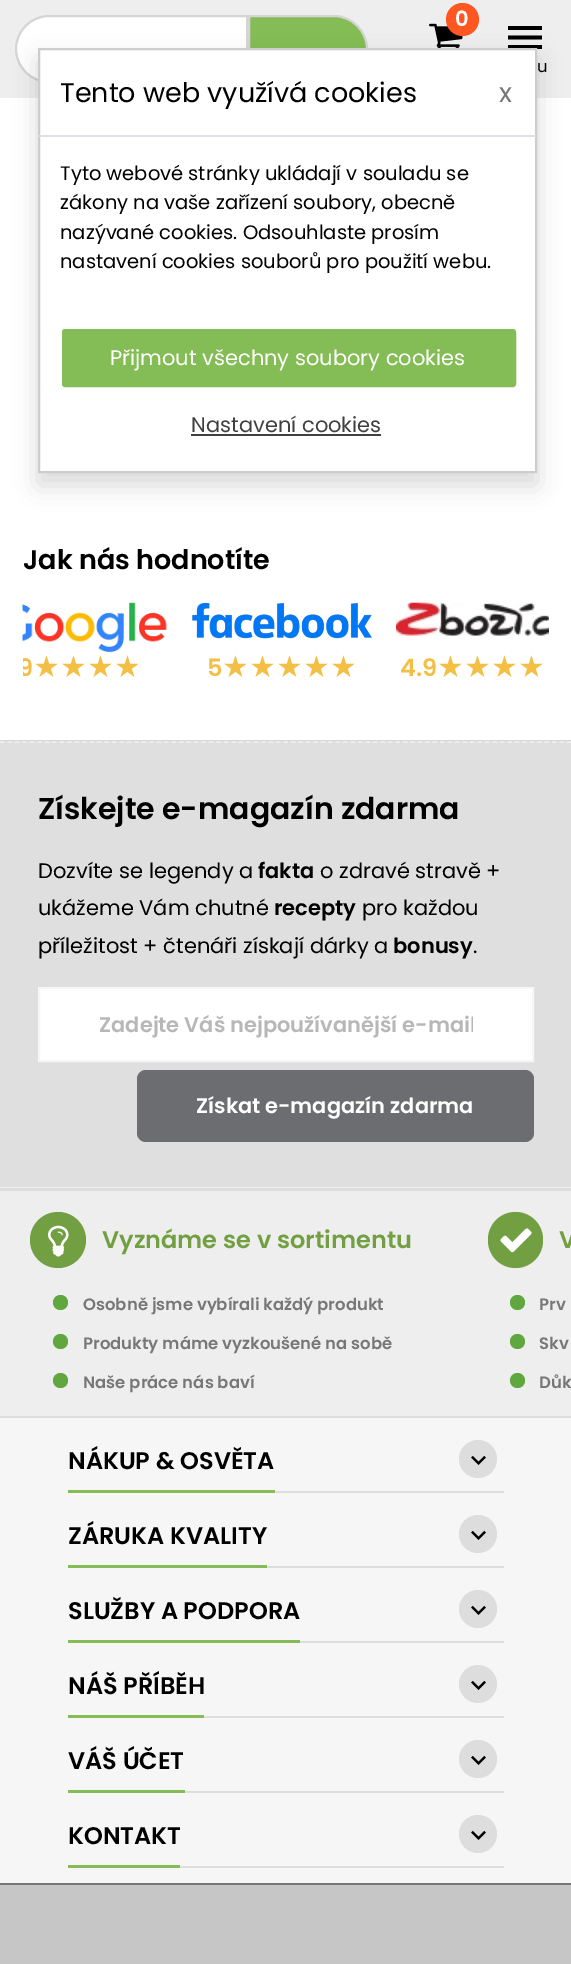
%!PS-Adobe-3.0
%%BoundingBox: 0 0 571 1964
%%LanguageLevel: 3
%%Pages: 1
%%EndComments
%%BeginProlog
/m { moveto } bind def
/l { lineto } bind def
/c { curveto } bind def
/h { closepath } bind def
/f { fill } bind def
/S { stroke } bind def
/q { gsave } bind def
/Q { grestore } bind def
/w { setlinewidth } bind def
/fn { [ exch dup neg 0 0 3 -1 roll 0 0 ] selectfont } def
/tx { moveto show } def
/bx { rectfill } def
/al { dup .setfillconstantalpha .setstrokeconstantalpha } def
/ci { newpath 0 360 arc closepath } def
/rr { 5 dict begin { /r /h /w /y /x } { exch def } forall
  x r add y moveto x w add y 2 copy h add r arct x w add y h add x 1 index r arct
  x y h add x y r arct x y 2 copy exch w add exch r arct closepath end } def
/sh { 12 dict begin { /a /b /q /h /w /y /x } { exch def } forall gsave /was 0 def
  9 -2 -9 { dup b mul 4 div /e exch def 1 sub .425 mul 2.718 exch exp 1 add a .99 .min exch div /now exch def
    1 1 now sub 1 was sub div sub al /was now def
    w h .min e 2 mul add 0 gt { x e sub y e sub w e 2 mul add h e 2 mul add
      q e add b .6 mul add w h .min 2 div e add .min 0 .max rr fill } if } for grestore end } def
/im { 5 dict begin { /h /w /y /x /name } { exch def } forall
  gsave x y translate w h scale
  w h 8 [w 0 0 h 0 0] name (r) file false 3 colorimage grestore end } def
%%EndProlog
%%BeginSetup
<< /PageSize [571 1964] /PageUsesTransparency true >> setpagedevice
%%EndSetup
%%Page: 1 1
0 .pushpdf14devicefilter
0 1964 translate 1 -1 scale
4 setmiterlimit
1 setgray
0 0 571 1964 bx
0.933 setgray
0 0 571 98 bx
1 setgray
49 16 m 247 16 l 247 82 l 49 82 l 31 82 16 67 16 49 c 16 31 31 16 49 16 c h q f Q
0.839 0.831 0.831 setrgbcolor
2 w
S
0.518 0.741 0.333 setrgbcolor
249 16 m 334 16 l 352 16 367 31 367 49 c 367 67 352 82 334 82 c 249 82 l h q f Q
0.839 0.831 0.831 setrgbcolor
S
(image0.raw) 429 23 34 25 im
1 0.341 0.133 setrgbcolor
462.5 19.5 16.5 ci f
/Poppins-SemiBold 21 fn
1 setgray
(0) 455 26 tx
0 setgray
508 26 m 542 26 l 542 30 l 508 30 l h 508 39.5 m 508 35.5 l 542 35.5 l 542 39.5 l h 508 49 m 508 45 l 542 45 l 542 49 l h f
/Poppins-Regular 16.5 fn
(u) 537 72 tx
/Poppins-SemiBold 27 fn
(Jak nás hodnotíte) 23 569 tx
(image1.raw) 22 602 145 50 im
q
23 603 526 92 rectclip
/Poppins-SemiBold 24 fn
0.953 0.749 0.271 setrgbcolor
(9) 18 676 tx
Q
/DejaVuSans-Regular 30 fn
0.953 0.749 0.271 setrgbcolor
(★★★★) 33 677 tx
(image2.raw) 192 602 180 37 im
/Poppins-SemiBold 24 fn
(5) 207 676 tx
/DejaVuSans-Regular 30 fn
(★★★★★) 222 677 tx
(image3.raw) 396 602 153 34 im
/Poppins-SemiBold 24 fn
(4.9) 400 676 tx
/DejaVuSans-Regular 30 fn
(★★★★) 437 677 tx
0.965 setgray
0 1418 571 465 bx
0.839 0.831 0.831 setrgbcolor
0 740 571 1 bx
0.875 setgray
0 741 571 446 bx
0.933 setgray
1.5 w
[4.5 2.96] 0 setdash
0 742 m 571.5 742 l S
0 1187 571 1 bx
/Poppins-SemiBold 30 fn
0 setgray
(Získejte e-magazín zdarma) 38 819 tx
/Poppins-Regular 21 fn
(Dozvíte se legendy a) 38 878 tx
/Poppins-SemiBold 21 fn
(fakta) 258 878 tx
/Poppins-Regular 21 fn
(o zdravé stravě +) 320 878 tx
(ukážeme Vám chutné) 38 915 tx
/Poppins-SemiBold 21 fn
(recepty) 274 915 tx
/Poppins-Regular 21 fn
(pro každou) 362 915 tx
(příležitost + čtenáři získají dárky a) 38 953 tx
/Poppins-SemiBold 21 fn
(bonusy) 393 953 tx
/Poppins-Regular 21 fn
(.) 473 953 tx
1 setgray
39 988 m 533 988 l 533 1061 l 39 1061 l h q f Q
0.965 setgray
2 w
[] 0 setdash
S
q
99 1010 374 31 rectclip
/Poppins-SemiBold 21 fn
0.718 setgray
(Zadejte Váš nejpoužívanější e-mail) 99 1032 tx
Q
0.424 0.427 0.439 setrgbcolor
137 1070 397 72 9 rr f
/Poppins-SemiBold 21 fn
1 setgray
(Získat e-magazín zdarma) 196 1113 tx
0.933 setgray
0 1191 571 225 bx
0.867 setgray
0 1188 571 3 bx
0.443 0.624 0.255 setrgbcolor
58 1240 28 ci f
(image4.raw) 48 1225 21 32 im
/Poppins-SemiBold 24 fn
(Vyznáme se v sortimentu) 102 1248 tx
0.373 0.655 0.243 setrgbcolor
60.5 1302.5 7.5 ci f
/Poppins-SemiBold 16.5 fn
0.467 setgray
(Osobně jsme vybírali každý produkt) 83 1310 tx
0.373 0.655 0.243 setrgbcolor
60.5 1341.5 7.5 ci f
0.467 setgray
(Produkty máme vyzkoušené na sobě) 83 1349 tx
0.373 0.655 0.243 setrgbcolor
60.5 1380.5 7.5 ci f
0.467 setgray
(Naše práce nás baví) 83 1388 tx
0.443 0.624 0.255 setrgbcolor
488 1212 55 56 27.5 rr f
(image5.raw) 500 1228 32 25 im
/Poppins-SemiBold 24 fn
(V) 559 1248 tx
0.373 0.655 0.243 setrgbcolor
517.5 1302.5 7.5 ci f
/Poppins-SemiBold 16.5 fn
0.467 setgray
(Prv) 539 1310 tx
0.373 0.655 0.243 setrgbcolor
517.5 1341.5 7.5 ci f
0.467 setgray
(Skv) 539 1349 tx
0.373 0.655 0.243 setrgbcolor
517.5 1380.5 7.5 ci f
0.467 setgray
(Důk) 539 1388 tx
0.867 setgray
0 1416 571 2 bx
275 1491 229 2 bx
0.518 0.741 0.333 setrgbcolor
68 1490 207 3 bx
/Poppins-SemiBold 24 fn
0 setgray
(NÁKUP & OSVĚTA) 68 1469 tx
0.867 setgray
478 1459 19 ci f
(image6.raw) 471 1455 15 10 im
267 1566 237 2 bx
0.518 0.741 0.333 setrgbcolor
68 1565 199 3 bx
0 setgray
(ZÁRUKA KVALITY) 68 1544 tx
0.867 setgray
478 1534 19 ci f
(image6.raw) 471 1530 15 10 im
300 1641 204 2 bx
0.518 0.741 0.333 setrgbcolor
68 1640 232 3 bx
0 setgray
(SLUŽBY A PODPORA) 68 1619 tx
0.867 setgray
478 1609 19 ci f
(image6.raw) 471 1605 15 10 im
204 1716 300 2 bx
0.518 0.741 0.333 setrgbcolor
68 1715 136 3 bx
0 setgray
(NÁŠ PŘÍBĚH) 68 1694 tx
0.867 setgray
478 1684 19 ci f
(image6.raw) 471 1680 15 10 im
185 1791 319 2 bx
0.518 0.741 0.333 setrgbcolor
68 1790 117 3 bx
0 setgray
(VÁŠ ÚČET) 68 1769 tx
0.867 setgray
478 1759 19 ci f
(image6.raw) 471 1755 15 10 im
180 1866 324 2 bx
0.518 0.741 0.333 setrgbcolor
68 1865 112 3 bx
0 setgray
(KONTAKT) 68 1844 tx
0.867 setgray
478 1834 19 ci f
(image6.raw) 471 1830 15 10 im
0.776 setgray
0 1885 571 79 bx
0.467 setgray
0 1883 571 2 bx
0 setgray
38 60 499 425 0 12 0.15 sh
1 setgray
39 49 m 536 49 l 536 472 l 39 472 l h q f Q
0.8 setgray
S
0.871 0.886 0.902 setrgbcolor
39 135 497 2 bx
/Poppins-Regular 27 fn
0 setgray
(Tento web využívá cookies) 60 102 tx
0.467 setgray
(x) 499 102 tx
/Poppins-Regular 19.5 fn
0 setgray
(Tyto webové stránky ukládají v souladu se) 60 180 tx
(zákony na vaše zařízení soubory, obecně) 60 209 tx
(nazývané cookies. Odsouhlaste prosím) 60 239 tx
(nastavení cookies souborů pro použití webu.) 60 268 tx
0.518 0.741 0.333 setrgbcolor
63 330 452 56 2 rr q f Q
S
/Poppins-Regular 21 fn
1 setgray
(Přijmout všechny soubory cookies) 110 365 tx
0.251 setgray
(Nastavení cookies) 191 432 tx
191 434 190 2 bx
.poppdf14devicefilter showpage
%%EOF
